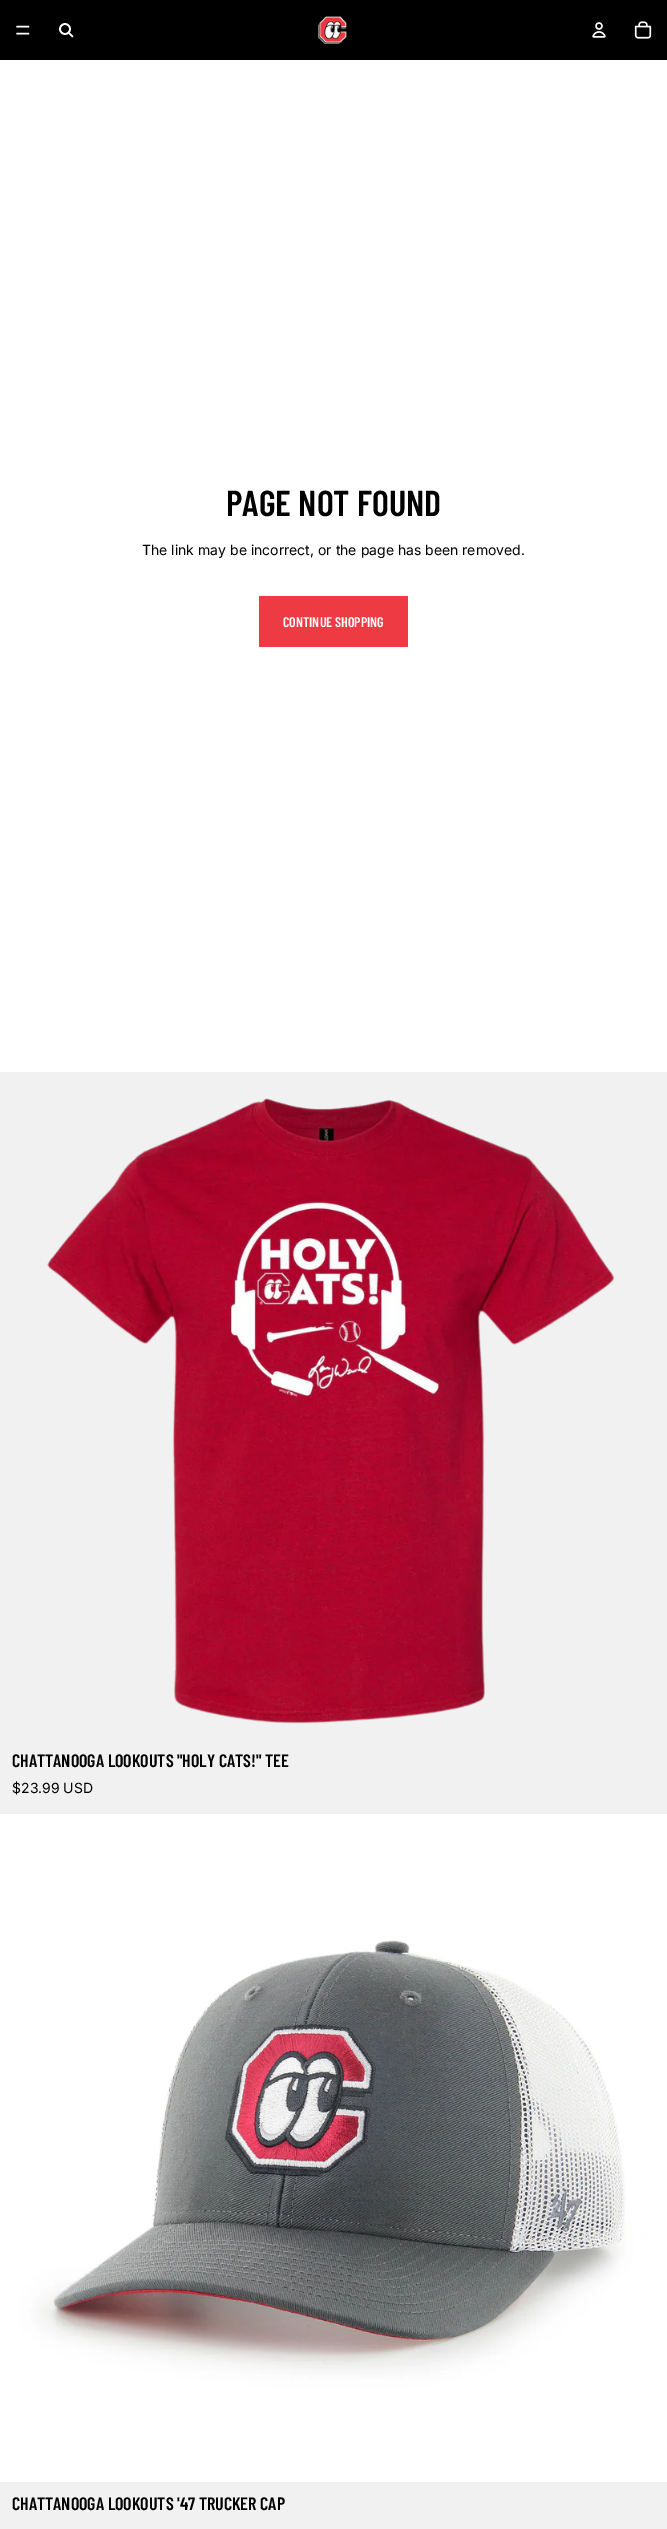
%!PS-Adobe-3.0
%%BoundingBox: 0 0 667 2529
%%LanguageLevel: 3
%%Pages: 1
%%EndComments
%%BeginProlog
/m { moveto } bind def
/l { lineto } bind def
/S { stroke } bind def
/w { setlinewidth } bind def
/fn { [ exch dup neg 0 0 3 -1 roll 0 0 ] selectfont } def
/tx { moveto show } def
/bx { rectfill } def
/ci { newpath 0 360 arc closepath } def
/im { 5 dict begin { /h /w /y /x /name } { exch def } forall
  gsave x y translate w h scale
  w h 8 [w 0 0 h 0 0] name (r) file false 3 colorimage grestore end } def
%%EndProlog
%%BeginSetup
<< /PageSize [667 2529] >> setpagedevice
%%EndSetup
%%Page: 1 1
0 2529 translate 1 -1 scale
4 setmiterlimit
1 setgray
0 0 667 2529 bx
0 setgray
0 0 667 60 bx
1 setgray
1.5 w
1 setlinecap
17 26.5 m 28.5 26.5 l 17 33.5 m 28.5 33.5 l S
1.7 w
0 setlinecap
65 29 5 ci S
1 setlinecap
1 setlinejoin
69 33 m 72.5 36.5 l S
(image0.raw) 318 16 29 28 im
(image1.raw) 592 22 14 16 im
(image2.raw) 634 21 18 18 im
/BarlowCondensed-SemiBold 36 fn
0 setgray
(PAGE NOT FOUND) 226 516 tx
/Inter-Regular 14 fn
(The link may be incorrect, or the page has been removed.) 142 555 tx
0.933 0.227 0.263 setrgbcolor
259 596 149 51 bx
/BarlowCondensed-SemiBold 14 fn
1 setgray
(CONTINUE SHOPPING) 283 627 tx
0.945 setgray
0 1072 667 742 bx
(image3.raw) 47 1098 568 626 im
/BarlowCondensed-SemiBold 18 fn
0 setgray
(CHATTANOOGA LOOKOUTS "HOLY CATS!" TEE) 12 1767 tx
/Inter-Regular 14 fn
($23.99 USD) 12 1793 tx
0.945 setgray
0 2482 667 47 bx
(image4.raw) 0 1815 667 667 im
/BarlowCondensed-SemiBold 18 fn
0 setgray
(CHATTANOOGA LOOKOUTS '47 TRUCKER CAP) 12 2510 tx
showpage
%%EOF
